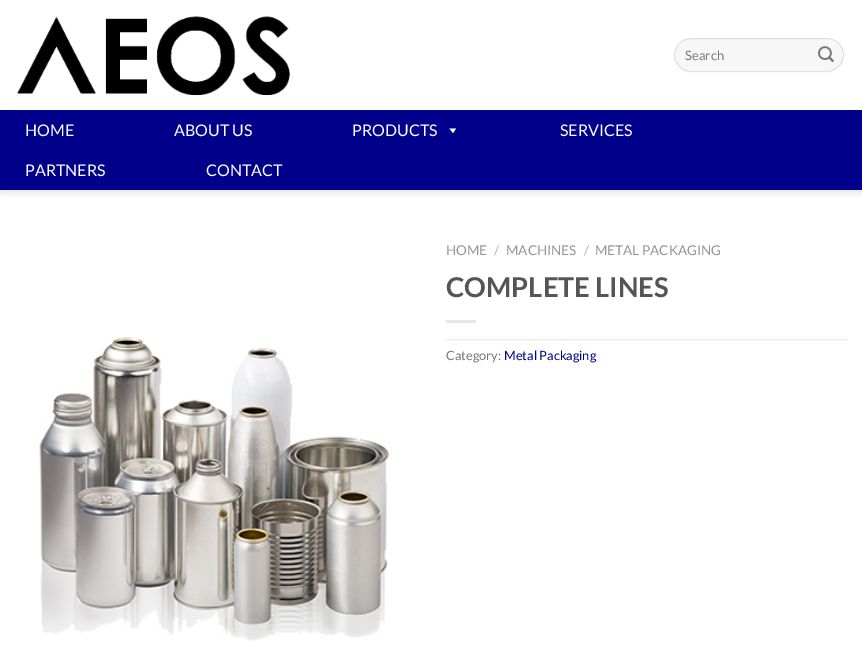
%!PS-Adobe-3.0
%%BoundingBox: 0 0 862 659
%%LanguageLevel: 3
%%Pages: 1
%%EndComments
%%BeginProlog
/m { moveto } bind def
/l { lineto } bind def
/h { closepath } bind def
/f { fill } bind def
/S { stroke } bind def
/q { gsave } bind def
/Q { grestore } bind def
/fn { [ exch dup neg 0 0 3 -1 roll 0 0 ] selectfont } def
/tx { moveto show } def
/bx { rectfill } def
/al { dup .setfillconstantalpha .setstrokeconstantalpha } def
/rr { 5 dict begin { /r /h /w /y /x } { exch def } forall
  x r add y moveto x w add y 2 copy h add r arct x w add y h add x 1 index r arct
  x y h add x y r arct x y 2 copy exch w add exch r arct closepath end } def
/sh { 12 dict begin { /a /b /q /h /w /y /x } { exch def } forall gsave /was 0 def
  9 -2 -9 { dup b mul 4 div /e exch def 1 sub .425 mul 2.718 exch exp 1 add a .99 .min exch div /now exch def
    1 1 now sub 1 was sub div sub al /was now def
    w h .min e 2 mul add 0 gt { x e sub y e sub w e 2 mul add h e 2 mul add
      q e add b .6 mul add w h .min 2 div e add .min 0 .max rr fill } if } for grestore end } def
/im { 5 dict begin { /h /w /y /x /name } { exch def } forall
  gsave x y translate w h scale
  w h 8 [w 0 0 h 0 0] name (r) file false 3 colorimage grestore end } def
%%EndProlog
%%BeginSetup
<< /PageSize [862 659] /PageUsesTransparency true >> setpagedevice
%%EndSetup
%%Page: 1 1
0 .pushpdf14devicefilter
0 659 translate 1 -1 scale
4 setmiterlimit
1 setgray
0 0 862 659 bx
q
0 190 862 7 rectclip
0 setgray
1 1 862 190 0 5 0.15 sh
Q
(image0.raw) 17 16 273 80 im
0.969 setgray
674 38 170 34 17 rr f
0.09 al
0 setgray
674.5 38.5 169 33 16.5 rr S
/Lato-Regular 13 fn
1 al
0.467 setgray
(Search) 685 60 tx
(image1.raw) 818 46 16 16 im
0 0 0.545 setrgbcolor
0 110 862 80 bx
0.047 0.047 0.537 setrgbcolor
15 110 832 1 bx
/Lato-Regular 16 fn
1 setgray
(HOME) 25 136 tx
(ABOUT US) 174 136 tx
(PRODUCTS) 352 136 tx
456 128.5 m 453 133 l 449.5 128.5 l h f
(SERVICES) 560 136 tx
(PARTNERS) 25 176 tx
(CONTACT) 206 176 tx
/Lato-Regular 13.5 fn
0.58 setgray
(HOME) 446 255 tx
0.698 setgray
(/) 494 255 tx
0.58 setgray
(MACHINES) 506 255 tx
0.698 setgray
(/) 584 255 tx
0.58 setgray
(METAL PACKAGING) 595 255 tx
/Lato-Bold 27.25 fn
0.333 setgray
(COMPLETE LINES) 446 297 tx
0.902 setgray
446 320 30 3 bx
0.867 setgray
[1 1] 0 setdash
446 339.5 m 847 339.5 l S
/Lato-Regular 12.75 fn
0.467 setgray
(Category:) 446 360 tx
0 0 0.545 setrgbcolor
(Metal Packaging) 504 360 tx
(image2.raw) 39 337 351 304 im
.poppdf14devicefilter showpage
%%EOF
